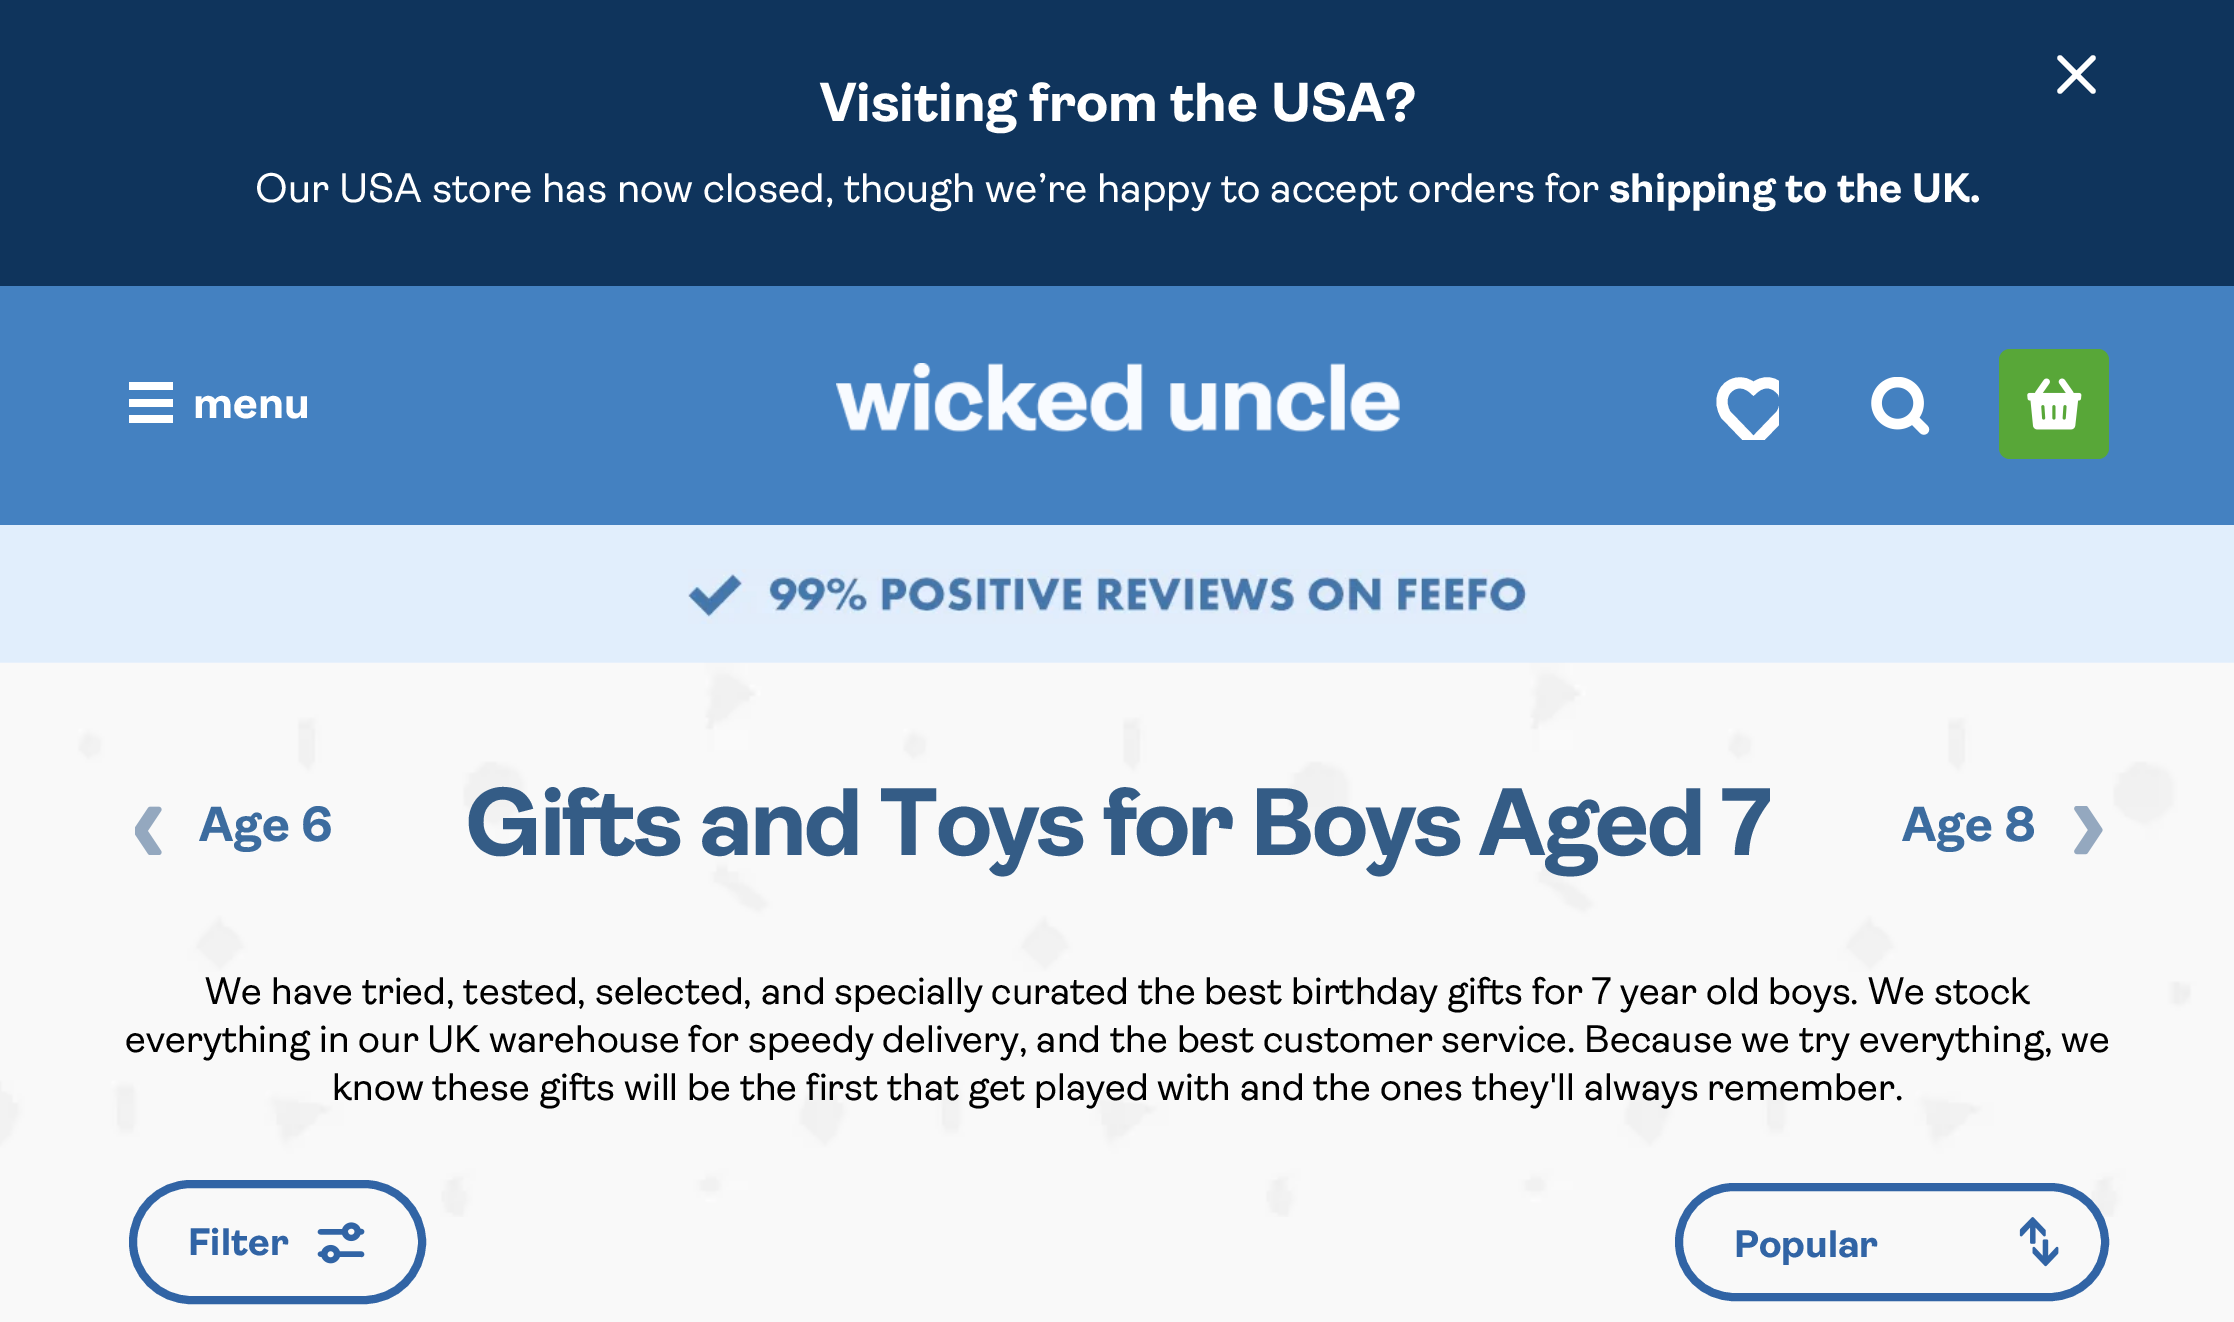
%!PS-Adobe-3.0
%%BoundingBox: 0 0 2234 1322
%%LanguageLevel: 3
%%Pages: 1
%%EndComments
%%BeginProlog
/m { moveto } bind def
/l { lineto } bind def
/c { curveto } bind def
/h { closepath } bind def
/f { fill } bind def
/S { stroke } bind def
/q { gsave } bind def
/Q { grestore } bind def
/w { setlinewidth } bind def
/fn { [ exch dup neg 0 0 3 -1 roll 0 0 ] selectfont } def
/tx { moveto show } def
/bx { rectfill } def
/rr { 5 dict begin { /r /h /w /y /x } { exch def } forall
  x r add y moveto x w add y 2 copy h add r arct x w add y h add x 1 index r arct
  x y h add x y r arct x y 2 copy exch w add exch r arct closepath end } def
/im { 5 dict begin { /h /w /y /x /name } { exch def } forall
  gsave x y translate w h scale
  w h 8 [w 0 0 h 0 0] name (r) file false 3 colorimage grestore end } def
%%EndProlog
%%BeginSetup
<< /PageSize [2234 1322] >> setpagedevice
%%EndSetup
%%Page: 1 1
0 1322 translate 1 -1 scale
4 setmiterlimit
0.882 0.933 0.988 setrgbcolor
0 0 2234 1322 bx
0.059 0.204 0.361 setrgbcolor
0 0 2234 286 bx
1 setgray
5.5 w
1 setlinecap
1 setlinejoin
2093 58 m 2060 91 l 2060 58 m 2093 91 l S
/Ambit-Bold 55 fn
(Visiting from the USA?) 820 121 tx
/Ambit-Regular 41.25 fn
255 202 m 0.4 0 32 (Our USA store has now closed, though we’re happy to accept orders for) widthshow
/Ambit-Bold 41.25 fn
(shipping to the UK.) 1609 202 tx
0.267 0.506 0.757 setrgbcolor
0 286 2234 239 bx
1 setgray
129 382 44 8 bx
129 399 44 8 bx
129 415 44 8 bx
/Ambit-Bold 44 fn
(menu) 193 418 tx
(image0.raw) 836 363 564 69 im
q
1713 374 66 66 rectclip
11 w
0 setlinecap
0 setlinejoin
1783 392 m 1775.5 381.5 1763.5 379.5 1753.5 388.5 c 1748.5 384 1742 381.5 1735.5 383.5 c 1730.5 384.5 1725.5 388.5 1723.5 394 c 1720.5 400.5 1722 409 1726 415 c 1753.5 443.5 l 1781 415 l 1785.5 408.5 1786.5 399 1783 392 c h S
Q
(image1.raw) 1871 377 59 58 im
0.345 0.655 0.22 setrgbcolor
1999 349 110 110 11 rr f
(image2.raw) 2027 378 55 52 im
(image3.raw) 688 569 839 55 im
0.976 setgray
0 1217 2234 105 bx
(image4.raw) 0 662 2234 555 im
(image5.raw) 135 806 27 49 im
/Ambit-Bold 49.5 fn
0.235 0.424 0.624 setrgbcolor
(Age 6) 199 841 tx
/Ambit-Bold 96.25 fn
0.204 0.361 0.525 setrgbcolor
465 855 m -2.9 0 (Gifts and Toys for Boys Aged 7) ashow
/Ambit-Bold 49.5 fn
0.235 0.424 0.624 setrgbcolor
(Age 8) 1902 841 tx
(image6.raw) 2074 806 29 49 im
/Ambit-Regular 38.5 fn
0 setgray
(We have tried, tested, selected, and specially curated the best birthday gifts for 7 year old boys. We stock) 205 1004 tx
(everything in our UK warehouse for speedy delivery, and the best customer service. Because we try everything, we) 125 1052 tx
(know these gifts will be the first that get played with and the ones they'll always remember.) 332 1100 tx
0.192 0.392 0.647 setrgbcolor
8 w
0 setlinecap
0 setlinejoin
133 1184 289 116 58 rr S
/Ambit-Bold 38.5 fn
(Filter) 188 1255 tx
(image7.raw) 317 1222 48 42 im
(image8.raw) 2019 1217 40 50 im
1679 1187 426 110 55 rr S
(Popular) 1734 1257 tx
showpage
%%EOF
